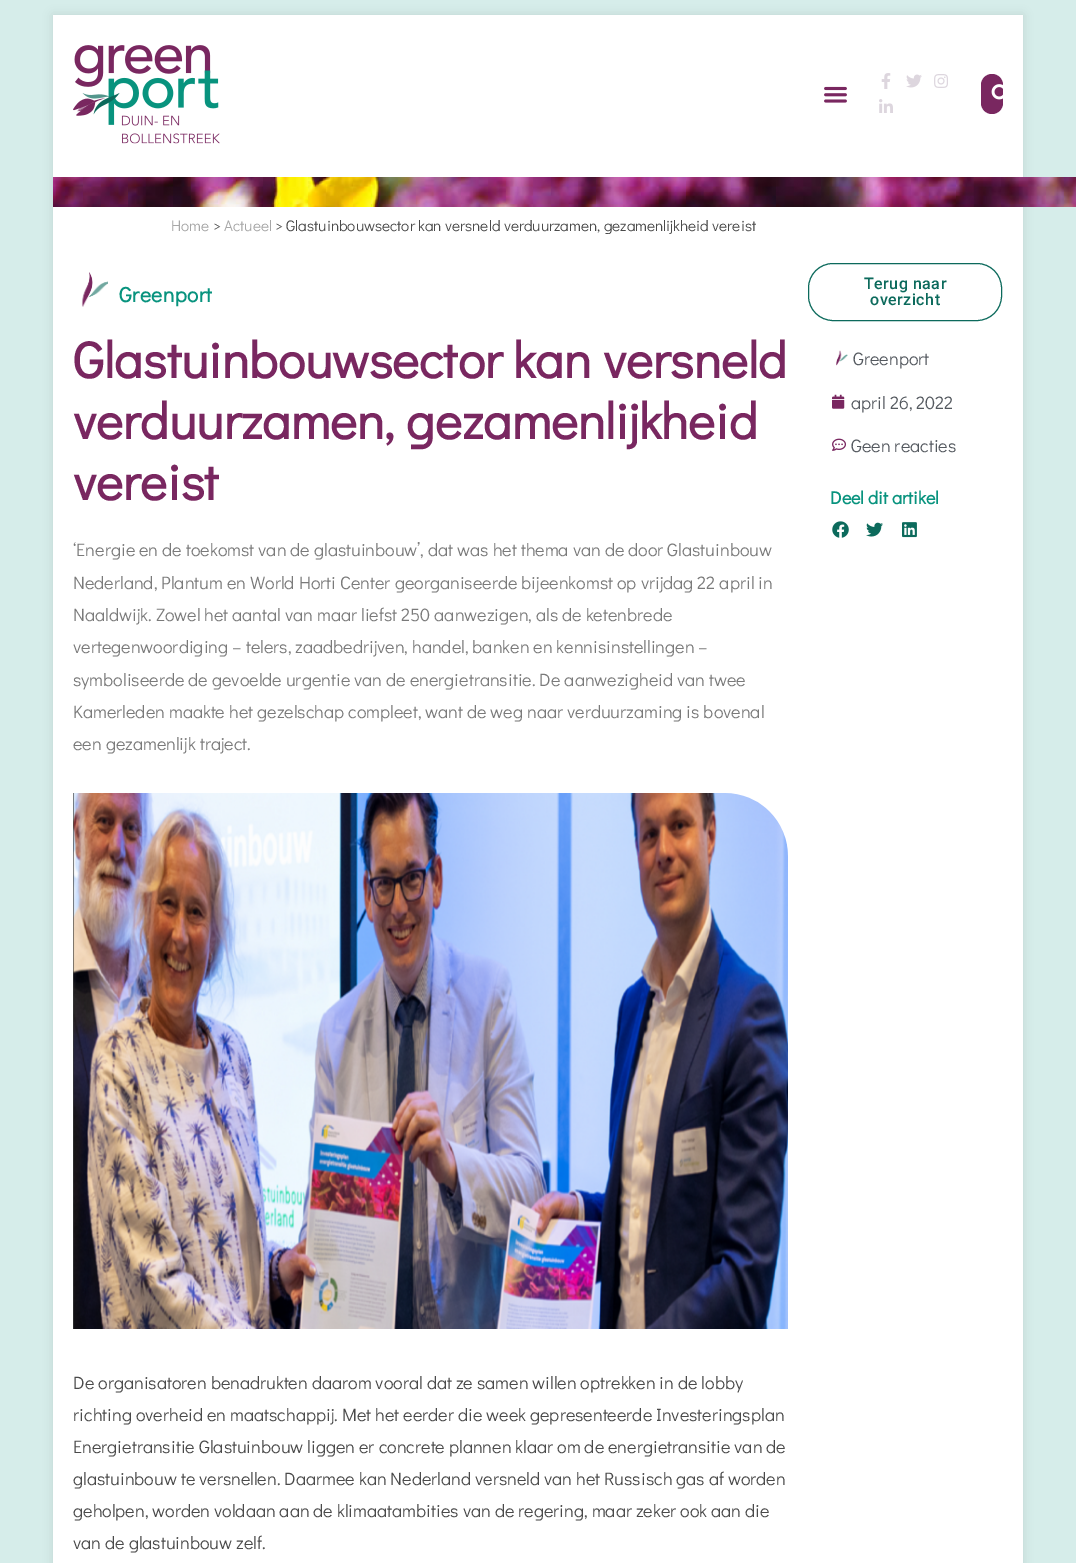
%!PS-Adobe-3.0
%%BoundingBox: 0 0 1076 1563
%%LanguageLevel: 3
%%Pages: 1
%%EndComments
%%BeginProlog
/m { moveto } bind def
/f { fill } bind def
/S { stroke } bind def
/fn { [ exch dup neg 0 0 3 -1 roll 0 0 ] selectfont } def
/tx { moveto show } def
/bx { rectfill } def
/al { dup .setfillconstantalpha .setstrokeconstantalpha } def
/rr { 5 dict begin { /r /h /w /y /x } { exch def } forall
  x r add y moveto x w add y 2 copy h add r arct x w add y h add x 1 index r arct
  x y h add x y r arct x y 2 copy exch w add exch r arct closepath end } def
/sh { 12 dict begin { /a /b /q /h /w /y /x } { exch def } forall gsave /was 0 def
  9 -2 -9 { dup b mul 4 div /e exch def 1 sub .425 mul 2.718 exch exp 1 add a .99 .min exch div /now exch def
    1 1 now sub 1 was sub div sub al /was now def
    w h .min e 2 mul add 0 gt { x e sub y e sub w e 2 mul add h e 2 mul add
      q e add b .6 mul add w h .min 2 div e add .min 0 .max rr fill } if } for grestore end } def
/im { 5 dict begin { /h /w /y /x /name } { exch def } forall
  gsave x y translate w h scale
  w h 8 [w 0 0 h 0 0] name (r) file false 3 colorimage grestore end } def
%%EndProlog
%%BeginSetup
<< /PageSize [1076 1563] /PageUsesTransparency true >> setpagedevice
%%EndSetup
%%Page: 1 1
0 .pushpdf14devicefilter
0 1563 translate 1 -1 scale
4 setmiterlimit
0.839 0.929 0.918 setrgbcolor
0 0 1076 1563 bx
0 setgray
53 15 970 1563 0 5 0.1 sh
1 setgray
53 15 970 1548 bx
(image0.raw) 73 45 147 99 im
(image1.raw) 824 86 23 17 im
(image2.raw) 881 73 10 16 im
(image3.raw) 906 74 16 14 im
(image4.raw) 934 74 14 14 im
(image5.raw) 879 99 14 14 im
0.475 0.153 0.376 setrgbcolor
981 74 22 40 11 rr f
(image6.raw) 991 84 12 16 im
(image7.raw) 53 177 1023 30 im
/DidactGothic-Regular 15.3 fn
0.655 setgray
(Home) 171 231 tx
0.29 setgray
(>) 213 231 tx
0.655 setgray
(Actueel) 224 231 tx
0.29 setgray
(> Glastuinbouwsector kan versneld verduurzamen, gezamenlijkheid vereist) 275 231 tx
(image8.raw) 81 272 27 35 im
/DidactGothic-Bold 21 fn
0.031 0.576 0.494 setrgbcolor
119 302 m 0.5 0 (Greenport) ashow
/DidactGothic-Bold 51 fn
0.475 0.153 0.376 setrgbcolor
(Glastuinbouwsector kan versneld) 73 378 tx
(verduurzamen, gezamenlijkheid) 73 439 tx
(vereist) 73 500 tx
/DidactGothic-Regular 18 fn
0.478 setgray
(‘Energie en de toekomst van de glastuinbouw’, dat was het thema van de door Glastuinbouw) 73 556 tx
(Nederland, Plantum en World Horti Center georganiseerde bijeenkomst op vrijdag 22 april in) 73 589 tx
(Naaldwijk. Zowel het aantal van maar liefst 250 aanwezigen, als de ketenbrede) 73 621 tx
(vertegenwoordiging – telers, zaadbedrijven, handel, banken en kennisinstellingen –) 73 653 tx
(symboliseerde de gevoelde urgentie van de energietransitie. De aanwezigheid van twee) 73 686 tx
(Kamerleden maakte het gezelschap compleet, want de weg naar verduurzaming is bovenal) 73 718 tx
(een gezamenlijk traject.) 73 750 tx
(image9.raw) 73 793 715 536 im
0.29 setgray
(De organisatoren benadrukten daarom vooral dat ze samen willen optrekken in de lobby) 73 1389 tx
(richting overheid en maatschappij. Met het eerder die week gepresenteerde Investeringsplan) 73 1421 tx
(Energietransitie Glastuinbouw liggen er concrete plannen klaar om de energietransitie van de) 73 1453 tx
(glastuinbouw te versnellen. Daarmee kan Nederland versneld van het Russisch gas af worden) 73 1485 tx
(geholpen, worden voldaan aan de klimaatambities van de regering, maar zeker ook aan die) 73 1517 tx
(van de glastuinbouw zelf.) 73 1549 tx
0.047 0.416 0.361 setrgbcolor
808.5 263.5 193 57 24.5 rr S
/Roboto-Medium 16 fn
864 289 m 0.5 0 (Terug naar) ashow
870 305 m 0.5 0 (overzicht) ashow
(image10.raw) 836 350 12 16 im
/DidactGothic-Regular 18 fn
0.329 0.349 0.373 setrgbcolor
(Greenport) 853 365 tx
(image11.raw) 832 394 13 15 im
(april 26, 2022) 851 409 tx
(image12.raw) 832 438 14 13 im
(Geen reacties) 851 452 tx
/DidactGothic-Bold 18 fn
0.031 0.576 0.494 setrgbcolor
(Deel dit artikel) 830 504 tx
(image13.raw) 832 521 17 17 im
(image14.raw) 866 522 17 15 im
(image15.raw) 902 522 15 16 im
.poppdf14devicefilter showpage
%%EOF
